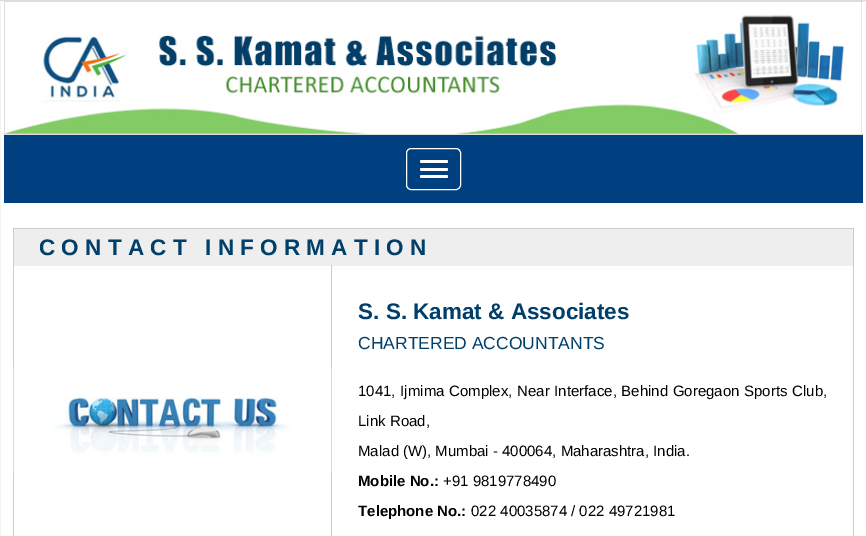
%!PS-Adobe-3.0
%%BoundingBox: 0 0 866 536
%%LanguageLevel: 3
%%Pages: 1
%%EndComments
%%BeginProlog
/m { moveto } bind def
/f { fill } bind def
/S { stroke } bind def
/fn { [ exch dup neg 0 0 3 -1 roll 0 0 ] selectfont } def
/tx { moveto show } def
/bx { rectfill } def
/rr { 5 dict begin { /r /h /w /y /x } { exch def } forall
  x r add y moveto x w add y 2 copy h add r arct x w add y h add x 1 index r arct
  x y h add x y r arct x y 2 copy exch w add exch r arct closepath end } def
/im { 5 dict begin { /h /w /y /x /name } { exch def } forall
  gsave x y translate w h scale
  w h 8 [w 0 0 h 0 0] name (r) file false 3 colorimage grestore end } def
%%EndProlog
%%BeginSetup
<< /PageSize [866 536] >> setpagedevice
%%EndSetup
%%Page: 1 1
0 536 translate 1 -1 scale
4 setmiterlimit
1 setgray
0 0 866 536 bx
0.867 setgray
-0.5 0.5 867 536 rectstroke
4 1 859 1 bx
861 1 1 134 bx
4 134 859 1 bx
4 1 1 134 bx
(image0.raw) 5 2 857 132 im
0 0.251 0.502 setrgbcolor
4 135 859 68 bx
1 setgray
406.5 148.5 54 41 4.5 rr S
420 160 28 3 1.5 rr f
420 168 28 3 1.5 rr f
420 175 28 3 1.5 rr f
0.8 setgray
13 228 841 1 bx
853 228 1 308 bx
13 228 1 308 bx
0.933 setgray
14 229 839 37 bx
/LiberationSans-Bold 22.5 fn
0 0.247 0.412 setrgbcolor
39 255 m 6.25 0 (CONTACT INFORMATION) ashow
0.8 setgray
331 265 1 271 bx
(image1.raw) 13 367 319 106 im
0 0.247 0.412 setrgbcolor
(S. S. Kamat & Associates) 358 319 tx
/LiberationSans-Regular 17.5 fn
(CHARTERED ACCOUNTANTS) 358 349 tx
/LiberationSans-Regular 15 fn
0 setgray
358 396 m 0.5 0 32 (1041, Ijmima Complex, Near Interface, Behind Goregaon Sports Club,) widthshow
(Link Road,) 358 426 tx
(Malad \(W\), Mumbai - 400064, Maharashtra, India.) 358 456 tx
/LiberationSans-Bold 15 fn
(Mobile No.:) 358 486 tx
/LiberationSans-Regular 15 fn
(+91 9819778490) 443 486 tx
/LiberationSans-Bold 15 fn
(Telephone No.:) 358 516 tx
/LiberationSans-Regular 15 fn
(022 40035874 / 022 49721981) 471 516 tx
showpage
%%EOF
